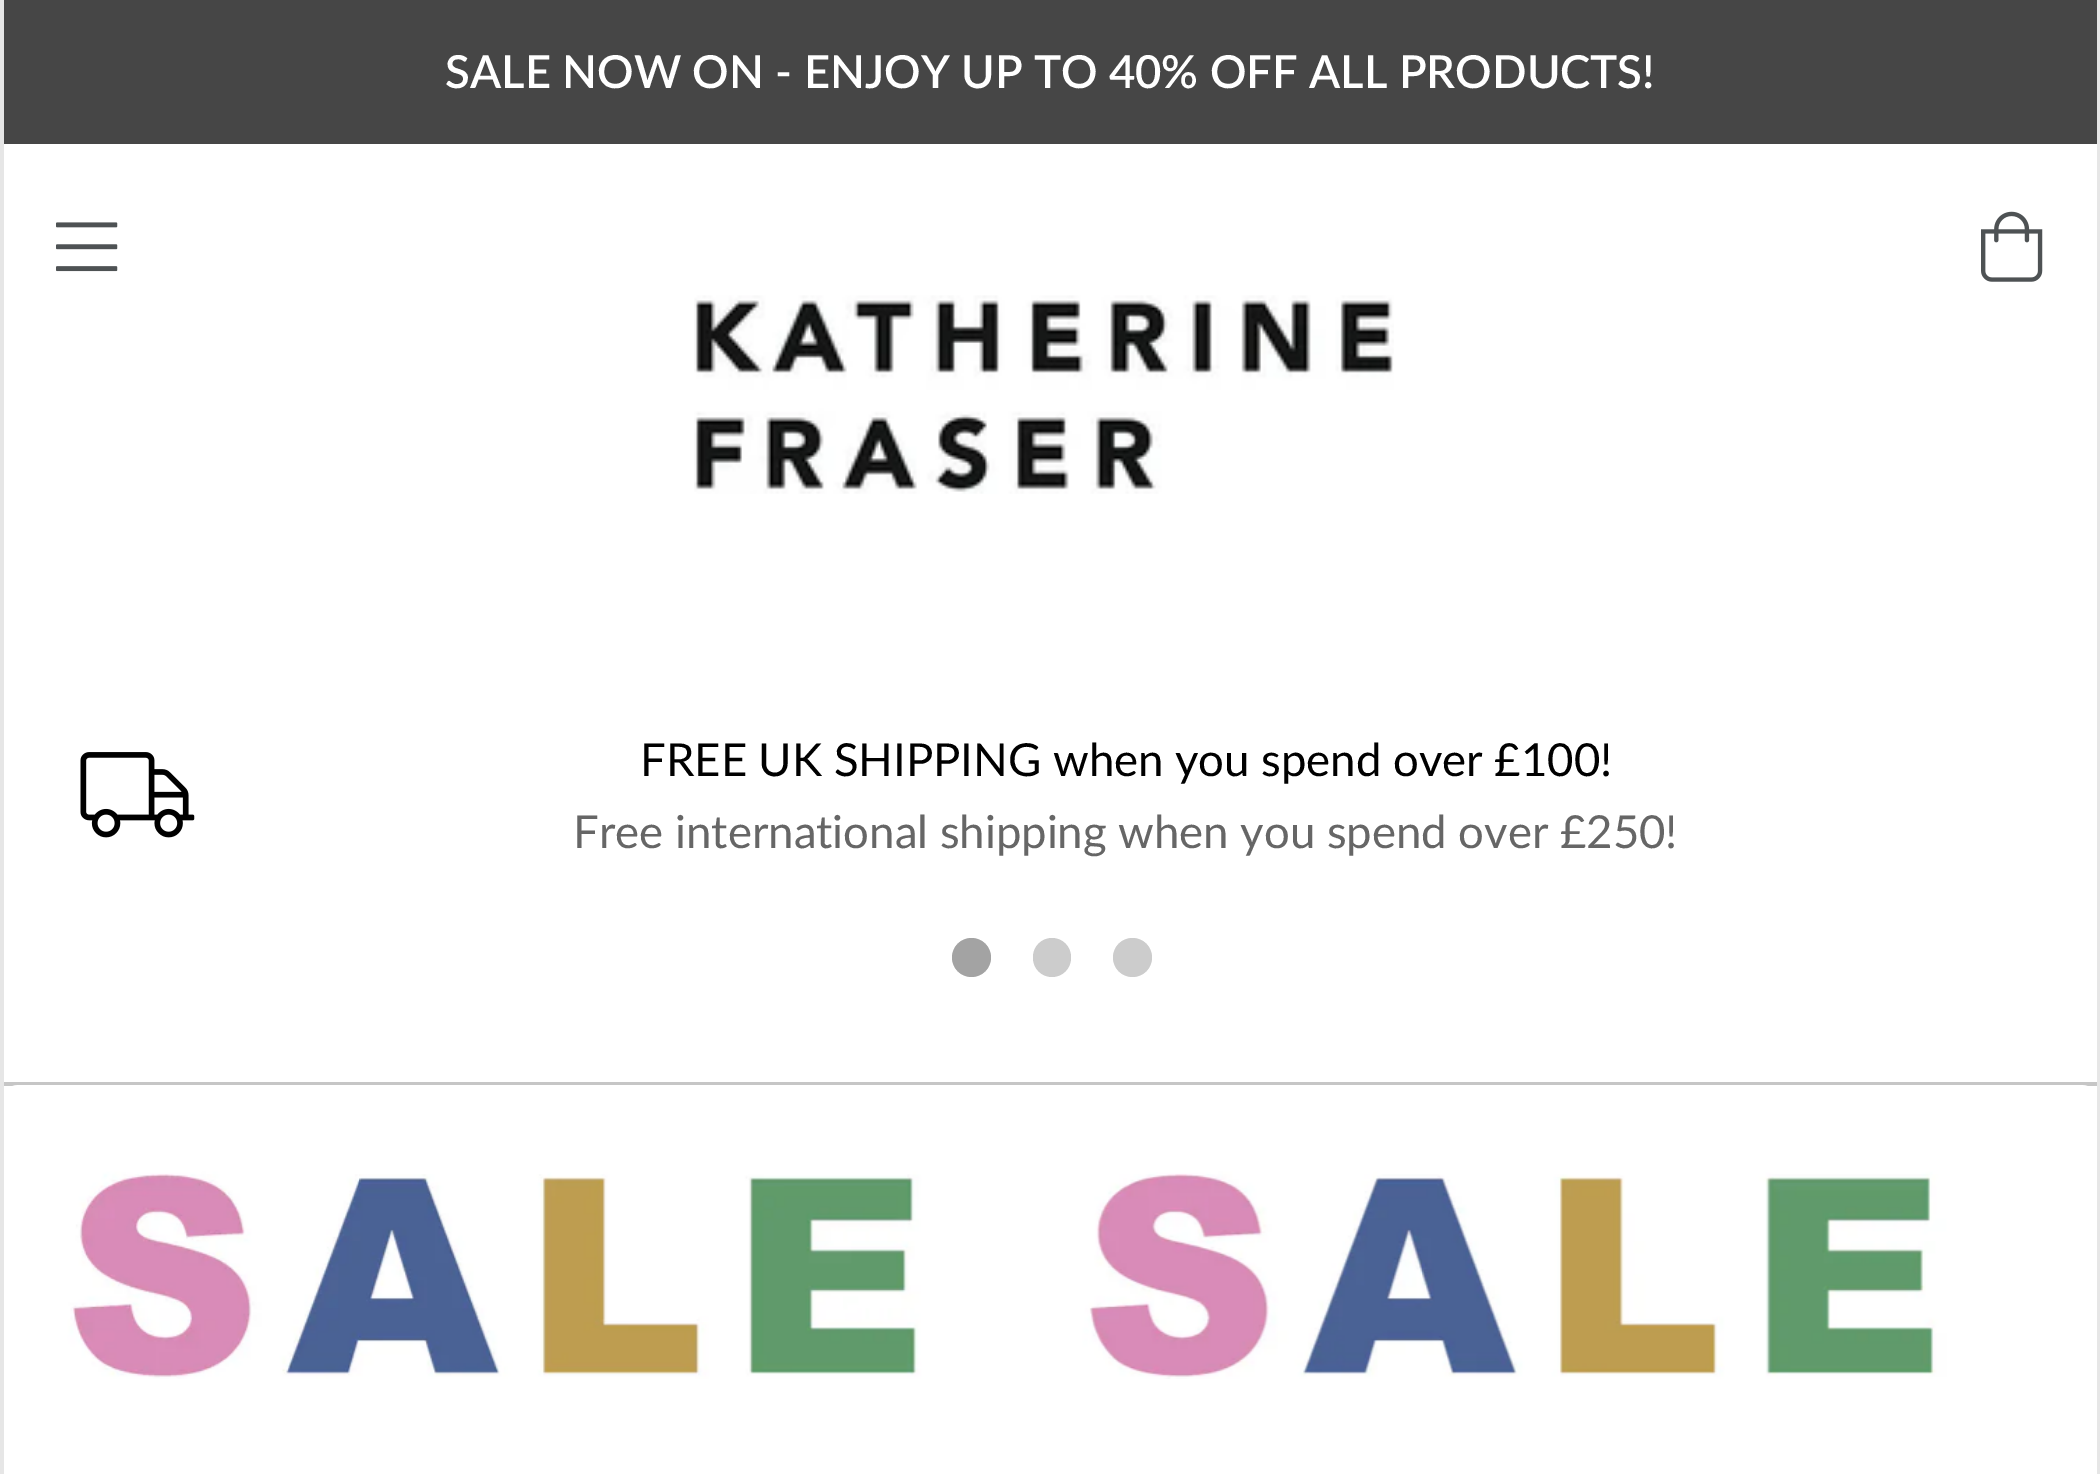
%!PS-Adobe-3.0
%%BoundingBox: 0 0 2100 1474
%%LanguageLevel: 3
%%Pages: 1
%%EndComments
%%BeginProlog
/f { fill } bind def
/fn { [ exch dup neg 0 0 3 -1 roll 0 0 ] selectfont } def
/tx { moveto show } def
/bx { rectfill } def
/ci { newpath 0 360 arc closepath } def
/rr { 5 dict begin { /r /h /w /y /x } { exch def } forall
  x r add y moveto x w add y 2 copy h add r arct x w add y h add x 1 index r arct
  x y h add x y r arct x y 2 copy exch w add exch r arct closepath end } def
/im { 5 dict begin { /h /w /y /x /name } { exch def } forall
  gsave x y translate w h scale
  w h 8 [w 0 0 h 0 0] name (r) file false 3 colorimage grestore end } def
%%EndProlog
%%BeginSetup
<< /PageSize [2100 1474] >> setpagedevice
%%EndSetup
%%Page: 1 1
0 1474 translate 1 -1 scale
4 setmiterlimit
1 setgray
0 0 2100 1474 bx
0.902 setgray
2097 0 3 1474 bx
0 0 4 1474 bx
0.275 setgray
4 0 2093 144 bx
/Lato-SemiBold 45.5 fn
1 setgray
(SALE NOW ON - ENJOY UP TO 40% OFF ALL PRODUCTS!) 445 88 tx
(image0.raw) 56 222 62 50 im
(image1.raw) 1981 211 62 71 im
(image2.raw) 694 295 700 199 im
0.776 setgray
4 1082 2093 4 bx
(image3.raw) 80 752 115 86 im
/Lato-Regular 45.5 fn
0 setgray
(FREE UK SHIPPING when you spend over £100!) 640 776 tx
0.4 setgray
(Free international shipping when you spend over £250!) 573 848 tx
0.639 setgray
971.5 957.5 19.5 ci f
0.8 setgray
1033 938 38 39 19 rr f
1132.5 957.5 19.5 ci f
(image4.raw) 12 1085 2076 294 im
showpage
%%EOF
